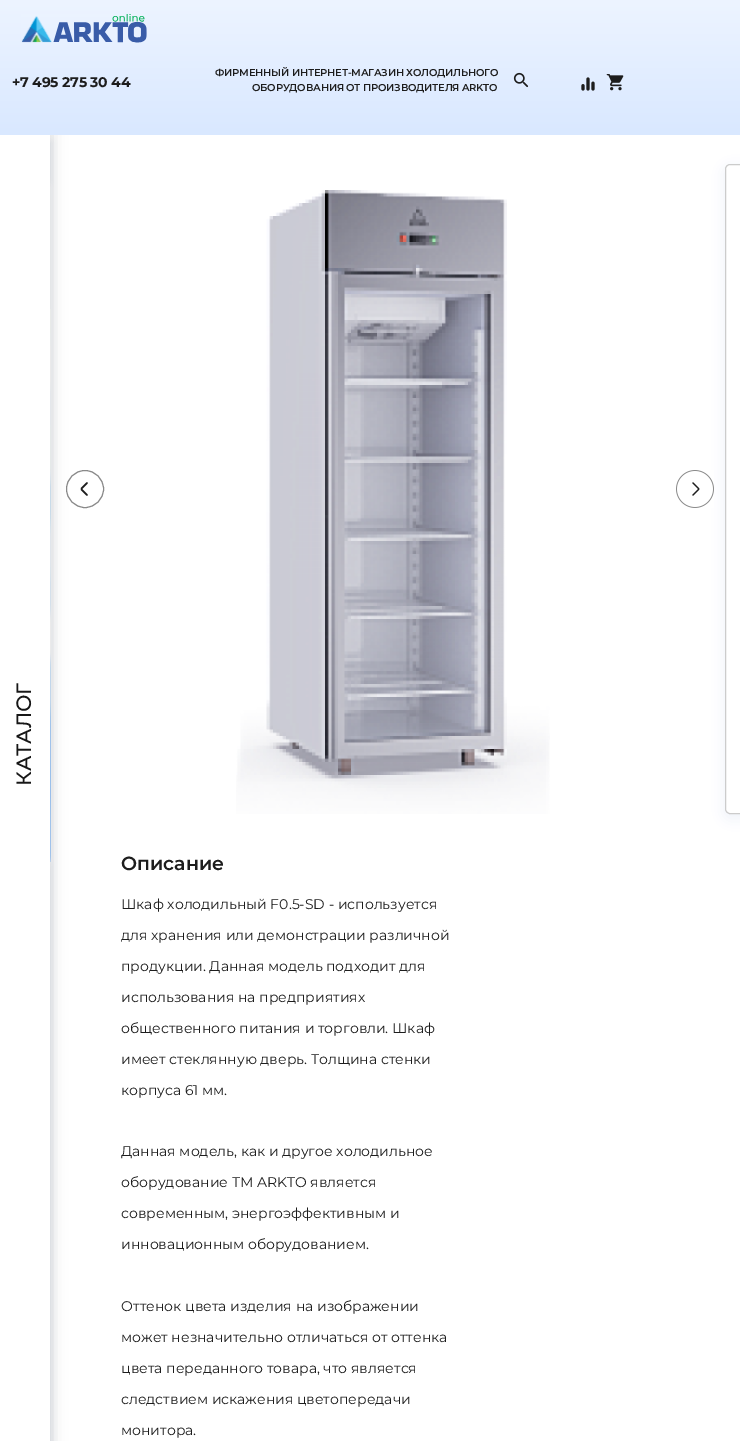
%!PS-Adobe-3.0
%%BoundingBox: 0 0 740 1441
%%LanguageLevel: 3
%%Pages: 1
%%EndComments
%%BeginProlog
/m { moveto } bind def
/l { lineto } bind def
/h { closepath } bind def
/f { fill } bind def
/S { stroke } bind def
/q { gsave } bind def
/Q { grestore } bind def
/w { setlinewidth } bind def
/fn { [ exch dup neg 0 0 3 -1 roll 0 0 ] selectfont } def
/tx { moveto show } def
/bx { rectfill } def
/al { dup .setfillconstantalpha .setstrokeconstantalpha } def
/ci { newpath 0 360 arc closepath } def
/rr { 5 dict begin { /r /h /w /y /x } { exch def } forall
  x r add y moveto x w add y 2 copy h add r arct x w add y h add x 1 index r arct
  x y h add x y r arct x y 2 copy exch w add exch r arct closepath end } def
/sh { 12 dict begin { /a /b /q /h /w /y /x } { exch def } forall gsave /was 0 def
  9 -2 -9 { dup b mul 4 div /e exch def 1 sub .425 mul 2.718 exch exp 1 add a .99 .min exch div /now exch def
    1 1 now sub 1 was sub div sub al /was now def
    w h .min e 2 mul add 0 gt { x e sub y e sub w e 2 mul add h e 2 mul add
      q e add b .6 mul add w h .min 2 div e add .min 0 .max rr fill } if } for grestore end } def
/im { 5 dict begin { /h /w /y /x /name } { exch def } forall
  gsave x y translate w h scale
  w h 8 [w 0 0 h 0 0] name (r) file false 3 colorimage grestore end } def
%%EndProlog
%%BeginSetup
<< /PageSize [740 1441] /PageUsesTransparency true >> setpagedevice
%%EndSetup
%%Page: 1 1
0 .pushpdf14devicefilter
0 1441 translate 1 -1 scale
4 setmiterlimit
1 setgray
0 0 740 1441 bx
0.224 0.361 0.659 setrgbcolor
-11 142 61 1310 0 3.5 0.3 sh
0.992 setgray
-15 135 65 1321 0 5 1 sh
1 setgray
-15 186 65 675 0 5 1 sh
(image4.raw) 50 309 1 553 im
(image5.raw) 50 309 1 553 im
0.537 setgray
85 489 18.5 ci S
0 setgray
2 4 50 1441 0 7.5 0.13 sh
q 0 0 m 740 0 l 740 135 l 0 135 l h clip newpath
<< /ShadingType 2 /ColorSpace /DeviceRGB /Coords [370 0 370 135] /Extend [true true] /Function << /FunctionType 2 /Domain [0 1] /C0 [0.929 0.957 1] /C1 [0.851 0.91 1] /N 1 >> >> shfill Q
(image0.raw) 21 14 126 29 im
/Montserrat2-Bold 14 fn
0.114 setgray
12 87 m -0.25 0 (+7 495 275 30 44) ashow
/Montserrat-SemiBold 10 fn
215 76 m -0.2 0 (ФИРМЕННЫЙ ИНТЕРНЕТ-МАГАЗИН ХОЛОДИЛЬНОГО) ashow
252 91 m -0.2 0 (ОБОРУДОВАНИЯ ОТ ПРОИЗВОДИТЕЛЯ ARKTO) ashow
(image1.raw) 513 72 16 16 im
(image2.raw) 581 77 14 14 im
(image3.raw) 606 74 18 17 im
1 setgray
0 135 50 1306 bx
/Montserrat-Bold 20 fn
0.09 setgray
q 31 786 translate -90 rotate 0 0 m 0.5 0 (КАТАЛОГ) ashow Q
0.114 setgray
1.5 w
1 setlinecap
1 setlinejoin
87 483 m 81.5 488.5 l 81.5 489.5 l 87 495 l S
(image6.raw) 236 190 314 624 im
0.224 0.361 0.659 setrgbcolor
725 168 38 650 5 6 0.08 sh
(image7.raw) 676 470 38 38 im
1 setgray
725.5 164.5 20 649 4.5 rr q f Q
0.8 setgray
1 w
0 setlinecap
0 setlinejoin
S
/Montserrat-SemiBold 19 fn
0.114 setgray
(Описание) 121 870 tx
/Montserrat-Regular 14 fn
(Шкаф холодильный F0.5-SD - используется) 121 909 tx
(для хранения или демонстрации различной) 121 940 tx
(продукции. Данная модель подходит для) 121 971 tx
(использования на предприятиях) 121 1002 tx
(общественного питания и торговли. Шкаф) 121 1033 tx
(имеет стеклянную дверь. Толщина стенки) 121 1064 tx
(корпуса 61 мм.) 121 1095 tx
(Данная модель, как и другое холодильное) 121 1156 tx
(оборудование ТМ ARKTO является) 121 1187 tx
(современным, энергоэффективным и) 121 1218 tx
(инновационным оборудованием.) 121 1249 tx
(Оттенок цвета изделия на изображении) 121 1311 tx
(может незначительно отличаться от оттенка) 121 1342 tx
(цвета переданного товара, что является) 121 1373 tx
(следствием искажения цветопередачи) 121 1404 tx
(монитора.) 121 1435 tx
.poppdf14devicefilter showpage
%%EOF
